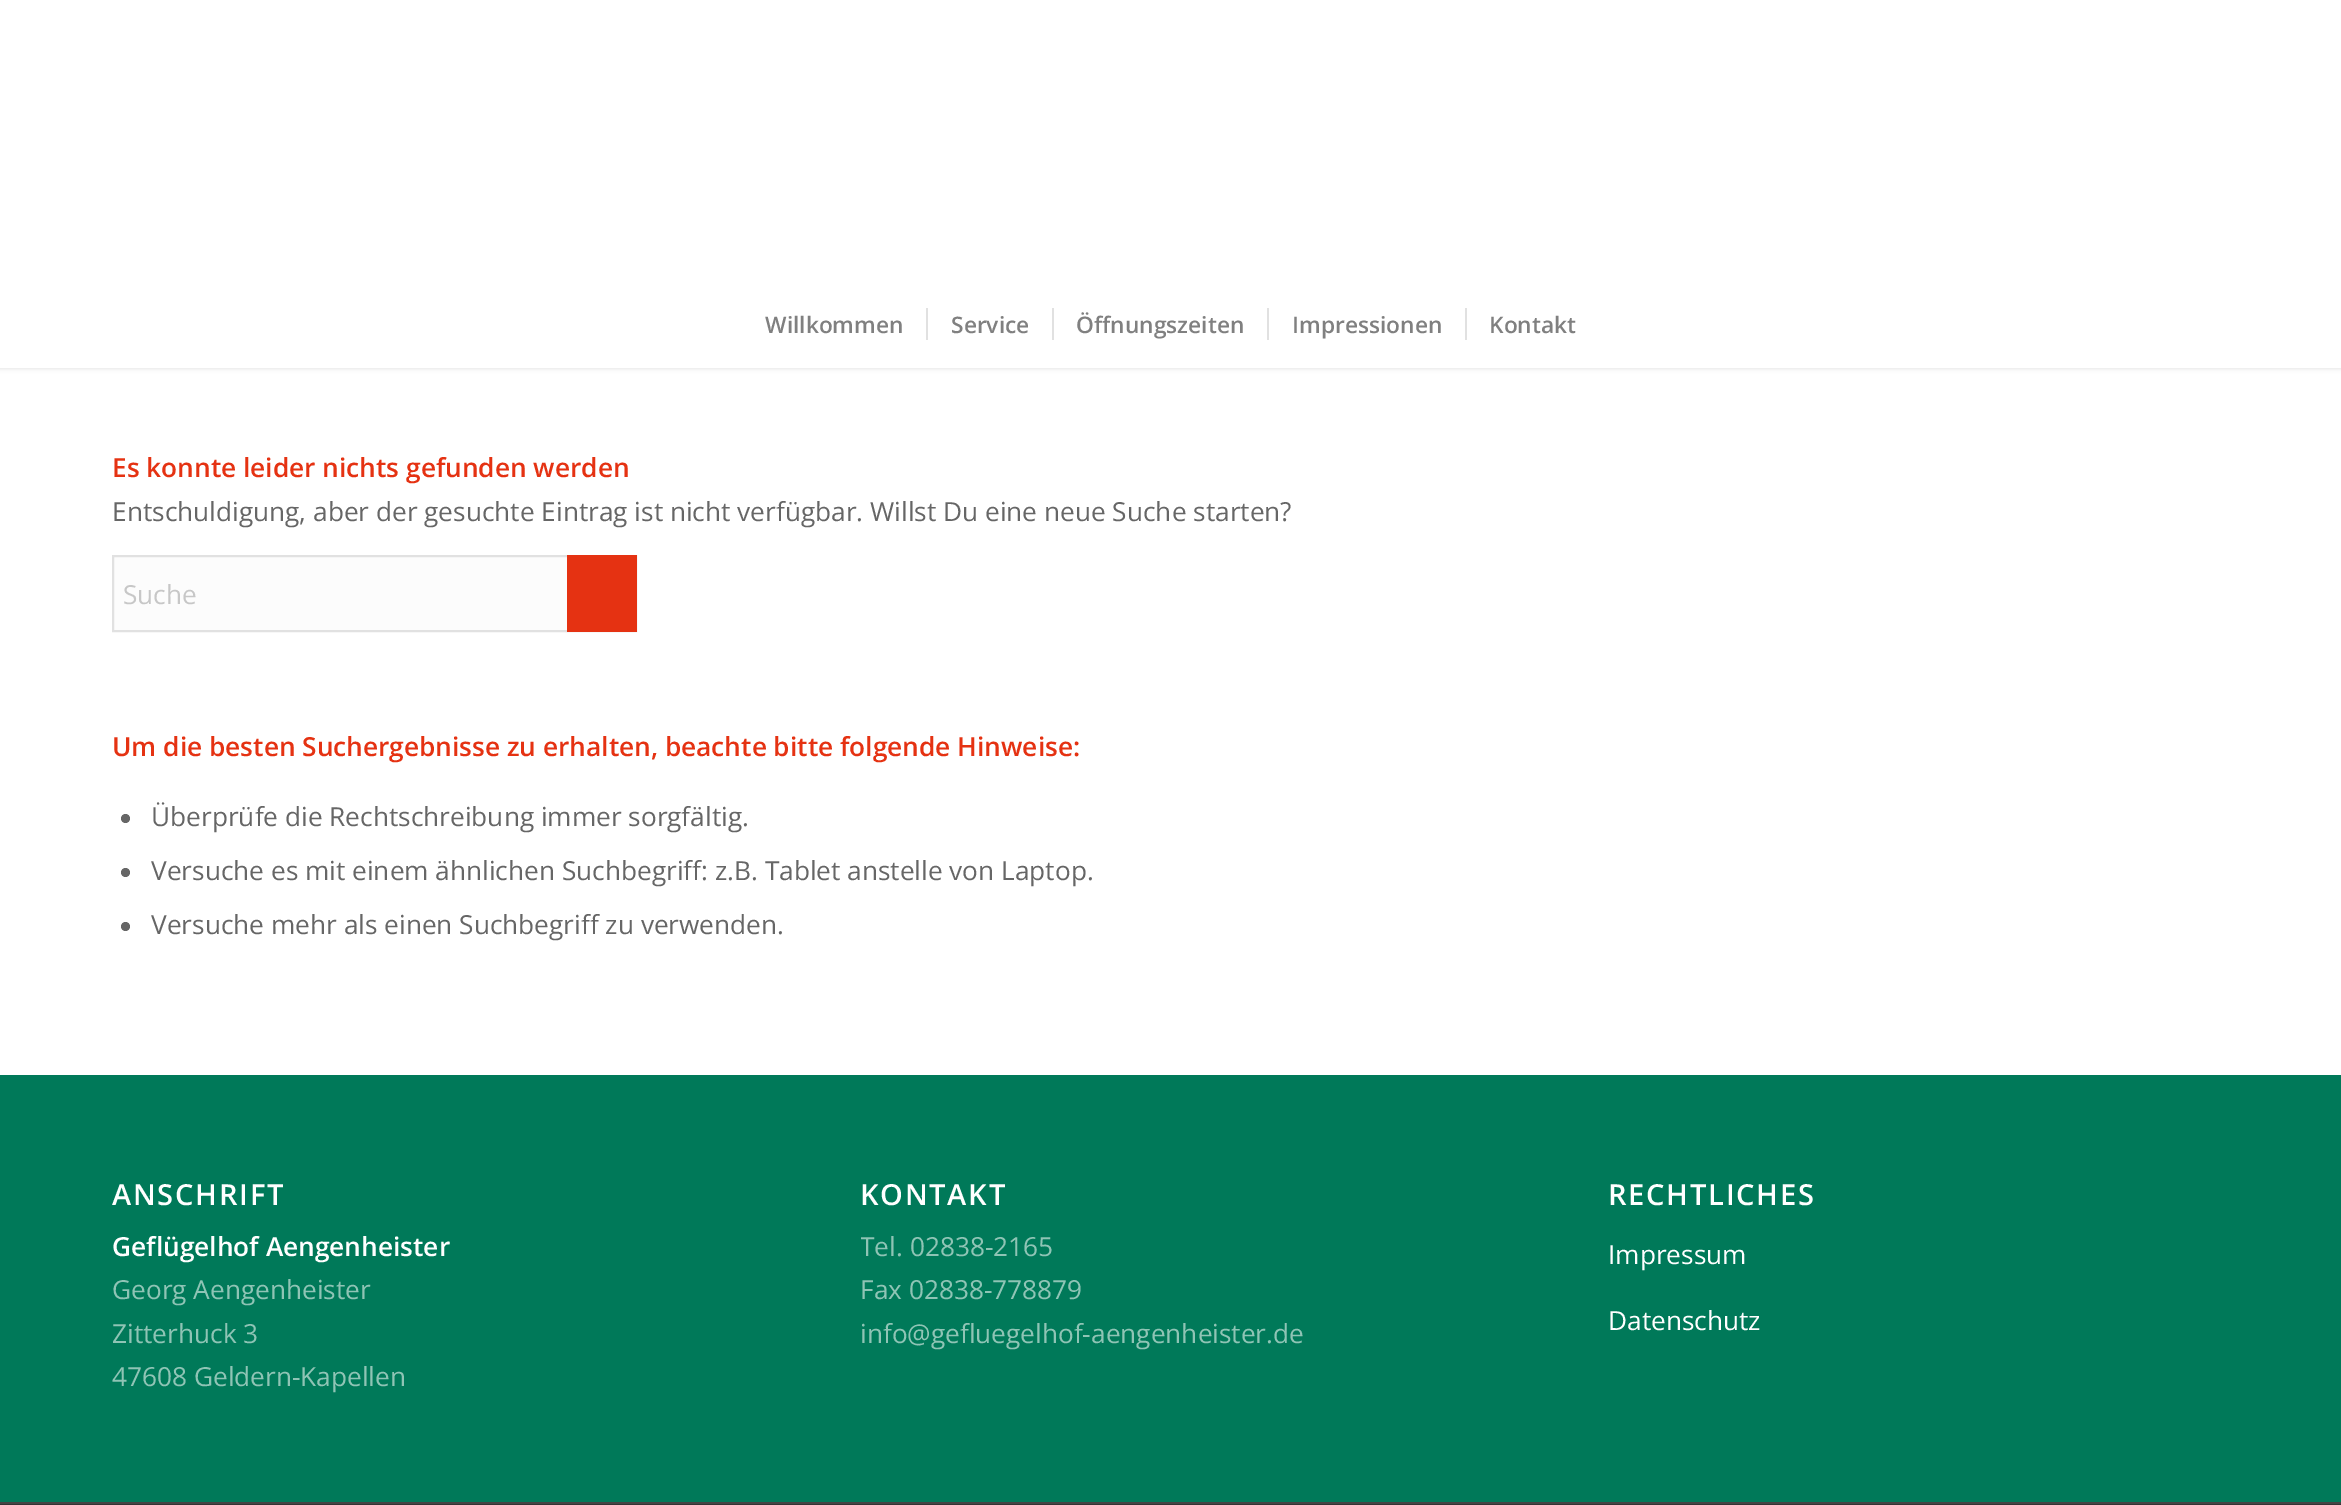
%!PS-Adobe-3.0
%%BoundingBox: 0 0 2341 1505
%%LanguageLevel: 3
%%Pages: 1
%%EndComments
%%BeginProlog
/m { moveto } bind def
/f { fill } bind def
/q { gsave } bind def
/Q { grestore } bind def
/w { setlinewidth } bind def
/fn { [ exch dup neg 0 0 3 -1 roll 0 0 ] selectfont } def
/tx { moveto show } def
/bx { rectfill } def
/al { dup .setfillconstantalpha .setstrokeconstantalpha } def
/ci { newpath 0 360 arc closepath } def
/rr { 5 dict begin { /r /h /w /y /x } { exch def } forall
  x r add y moveto x w add y 2 copy h add r arct x w add y h add x 1 index r arct
  x y h add x y r arct x y 2 copy exch w add exch r arct closepath end } def
/sh { 12 dict begin { /a /b /q /h /w /y /x } { exch def } forall gsave /was 0 def
  9 -2 -9 { dup b mul 4 div /e exch def 1 sub .425 mul 2.718 exch exp 1 add a .99 .min exch div /now exch def
    1 1 now sub 1 was sub div sub al /was now def
    w h .min e 2 mul add 0 gt { x e sub y e sub w e 2 mul add h e 2 mul add
      q e add b .6 mul add w h .min 2 div e add .min 0 .max rr fill } if } for grestore end } def
%%EndProlog
%%BeginSetup
<< /PageSize [2341 1505] /PageUsesTransparency true >> setpagedevice
%%EndSetup
%%Page: 1 1
0 .pushpdf14devicefilter
0 1505 translate 1 -1 scale
4 setmiterlimit
1 setgray
0 0 2341 1505 bx
0 setgray
-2 -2 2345 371 0 2 0.1 sh
1 setgray
0 0 2341 368 bx
/OpenSans-SemiBold 22.75 fn
0.502 setgray
(Willkommen) 765 333 tx
(Service) 951 333 tx
0.882 setgray
926 308 2 32 bx
0.502 setgray
(Öffnungszeiten) 1076 333 tx
0.882 setgray
1052 308 2 32 bx
0.502 setgray
(Impressionen) 1292 333 tx
0.882 setgray
1267 308 2 32 bx
0.502 setgray
(Kontakt) 1489 333 tx
0.882 setgray
1465 308 2 32 bx
/OpenSans-SemiBold 26.25 fn
0.898 0.196 0.071 setrgbcolor
(Es konnte leider nichts gefunden werden) 112 477 tx
/OpenSans-Regular 26.25 fn
0.4 setgray
(Entschuldigung, aber der gesuchte Eintrag ist nicht verfügbar. Willst Du eine neue Suche starten?) 112 521 tx
0.988 setgray
114 557 453 73 bx
0.882 setgray
2 w
113 556 523 75 rectstroke
0.78 setgray
(Suche) 123 604 tx
0.898 0.196 0.071 setrgbcolor
567 555 70 77 bx
/OpenSans-SemiBold 26.25 fn
(Um die besten Suchergebnisse zu erhalten, beachte bitte folgende Hinweise:) 112 756 tx
0.4 setgray
125.5 818.5 4.5 ci f
/OpenSans-Regular 26.25 fn
(Überprüfe die Rechtschreibung immer sorgfältig.) 151 826 tx
125.5 872.5 4.5 ci f
(Versuche es mit einem ähnlichen Suchbegriff: z.B. Tablet anstelle von Laptop.) 151 880 tx
125.5 926.5 4.5 ci f
(Versuche mehr als einen Suchbegriff zu verwenden.) 151 934 tx
0 0.475 0.349 setrgbcolor
0 1075 2341 427 bx
/OpenSans-SemiBold 29 fn
1 setgray
112 1205 m 1.75 0 (ANSCHRIFT) ashow
/OpenSans-SemiBold 26.25 fn
(Geflügelhof Aengenheister) 112 1256 tx
/OpenSans-Regular 26.25 fn
0.561 0.769 0.71 setrgbcolor
(Georg Aengenheister) 112 1299 tx
(Zitterhuck 3) 112 1343 tx
(47608 Geldern-Kapellen) 112 1386 tx
/OpenSans-SemiBold 29 fn
1 setgray
860 1205 m 1.75 0 (KONTAKT) ashow
q
861 1155 620 200 rectclip
/OpenSans-Regular 26.25 fn
0.561 0.769 0.71 setrgbcolor
(Tel. 02838-2165) 860 1256 tx
Q
/OpenSans-Regular 26.25 fn
0.561 0.769 0.71 setrgbcolor
(Fax 02838-778879) 860 1299 tx
(info@gefluegelhof-aengenheister.de) 860 1343 tx
/OpenSans-SemiBold 29 fn
1 setgray
1608 1205 m 1.75 0 (RECHTLICHES) ashow
/OpenSans-Regular 26.25 fn
(Impressum) 1608 1264 tx
(Datenschutz) 1608 1330 tx
0.2 setgray
0 1504 2341 1 bx
0.267 setgray
0 1502 2341 2 bx
.poppdf14devicefilter showpage
%%EOF
